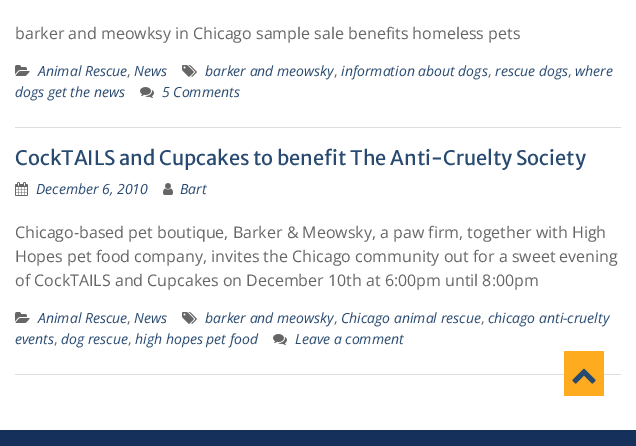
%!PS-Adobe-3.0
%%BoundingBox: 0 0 636 446
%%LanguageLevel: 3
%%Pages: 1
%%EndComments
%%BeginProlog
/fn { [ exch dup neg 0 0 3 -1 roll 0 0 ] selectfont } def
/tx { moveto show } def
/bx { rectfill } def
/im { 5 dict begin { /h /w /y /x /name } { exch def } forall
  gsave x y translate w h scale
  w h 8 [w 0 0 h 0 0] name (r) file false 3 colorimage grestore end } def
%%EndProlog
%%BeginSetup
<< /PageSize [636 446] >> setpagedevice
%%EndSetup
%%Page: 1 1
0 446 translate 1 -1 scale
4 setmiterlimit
1 setgray
0 0 636 446 bx
0.867 setgray
15 127 606 1 bx
/OpenSans-Regular 16 fn
0.4 setgray
(barker and meowksy in Chicago sample sale benefits homeless pets) 15 39 tx
(image0.raw) 182 65 15 12 im
/OpenSans-Italic 14 fn
0.161 0.29 0.439 setrgbcolor
(barker and meowsky) 205 76 tx
/OpenSans-Regular 14 fn
0.4 setgray
(,) 334 76 tx
/OpenSans-Italic 14 fn
0.161 0.29 0.439 setrgbcolor
(information about dogs) 341 76 tx
/OpenSans-Regular 14 fn
0.4 setgray
(,) 488 76 tx
/OpenSans-Italic 14 fn
0.161 0.29 0.439 setrgbcolor
(rescue dogs) 495 76 tx
/OpenSans-Regular 14 fn
0.4 setgray
(,) 568 76 tx
/OpenSans-Italic 14 fn
0.161 0.29 0.439 setrgbcolor
(where) 575 76 tx
(dogs get the news) 15 97 tx
(image1.raw) 15 65 15 11 im
(Animal Rescue) 38 76 tx
/OpenSans-Regular 14 fn
0.4 setgray
(,) 127 76 tx
/OpenSans-Italic 14 fn
0.161 0.29 0.439 setrgbcolor
(News) 134 76 tx
(image2.raw) 140 87 14 11 im
(5 Comments) 162 97 tx
0.867 setgray
15 374 606 1 bx
/MerriweatherSans-Regular 20 fn
0.161 0.29 0.439 setrgbcolor
(CockTAILS and Cupcakes to benefit The Anti-Cruelty Society) 15 165 tx
(image3.raw) 15 182 13 14 im
/OpenSans-Italic 14 fn
(December 6, 2010) 36 194 tx
(image4.raw) 163 183 10 12 im
(Bart) 180 194 tx
/OpenSans-Regular 16 fn
0.4 setgray
(Chicago-based pet boutique, Barker & Meowsky, a paw firm, together with High) 15 238 tx
(Hopes pet food company, invites the Chicago community out for a sweet evening) 15 262 tx
(of CockTAILS and Cupcakes on December 10th at 6:00pm until 8:00pm) 15 286 tx
(image0.raw) 182 312 15 12 im
/OpenSans-Italic 14 fn
0.161 0.29 0.439 setrgbcolor
(barker and meowsky) 205 323 tx
/OpenSans-Regular 14 fn
0.4 setgray
(,) 334 323 tx
/OpenSans-Italic 14 fn
0.161 0.29 0.439 setrgbcolor
(Chicago animal rescue) 341 323 tx
/OpenSans-Regular 14 fn
0.4 setgray
(,) 481 323 tx
/OpenSans-Italic 14 fn
0.161 0.29 0.439 setrgbcolor
(chicago anti-cruelty) 488 323 tx
(events) 15 344 tx
/OpenSans-Regular 14 fn
0.4 setgray
(,) 54 344 tx
/OpenSans-Italic 14 fn
0.161 0.29 0.439 setrgbcolor
(dog rescue) 61 344 tx
/OpenSans-Regular 14 fn
0.4 setgray
(,) 128 344 tx
/OpenSans-Italic 14 fn
0.161 0.29 0.439 setrgbcolor
(high hopes pet food) 135 344 tx
(image1.raw) 15 312 15 11 im
(Animal Rescue) 38 323 tx
/OpenSans-Regular 14 fn
0.4 setgray
(,) 127 323 tx
/OpenSans-Italic 14 fn
0.161 0.29 0.439 setrgbcolor
(News) 134 323 tx
(image2.raw) 273 334 14 11 im
(Leave a comment) 295 344 tx
0.082 0.188 0.357 setrgbcolor
0 430 636 16 bx
1 0.671 0.122 setrgbcolor
564 351 40 45 bx
(image5.raw) 572 368 24 16 im
showpage
%%EOF
